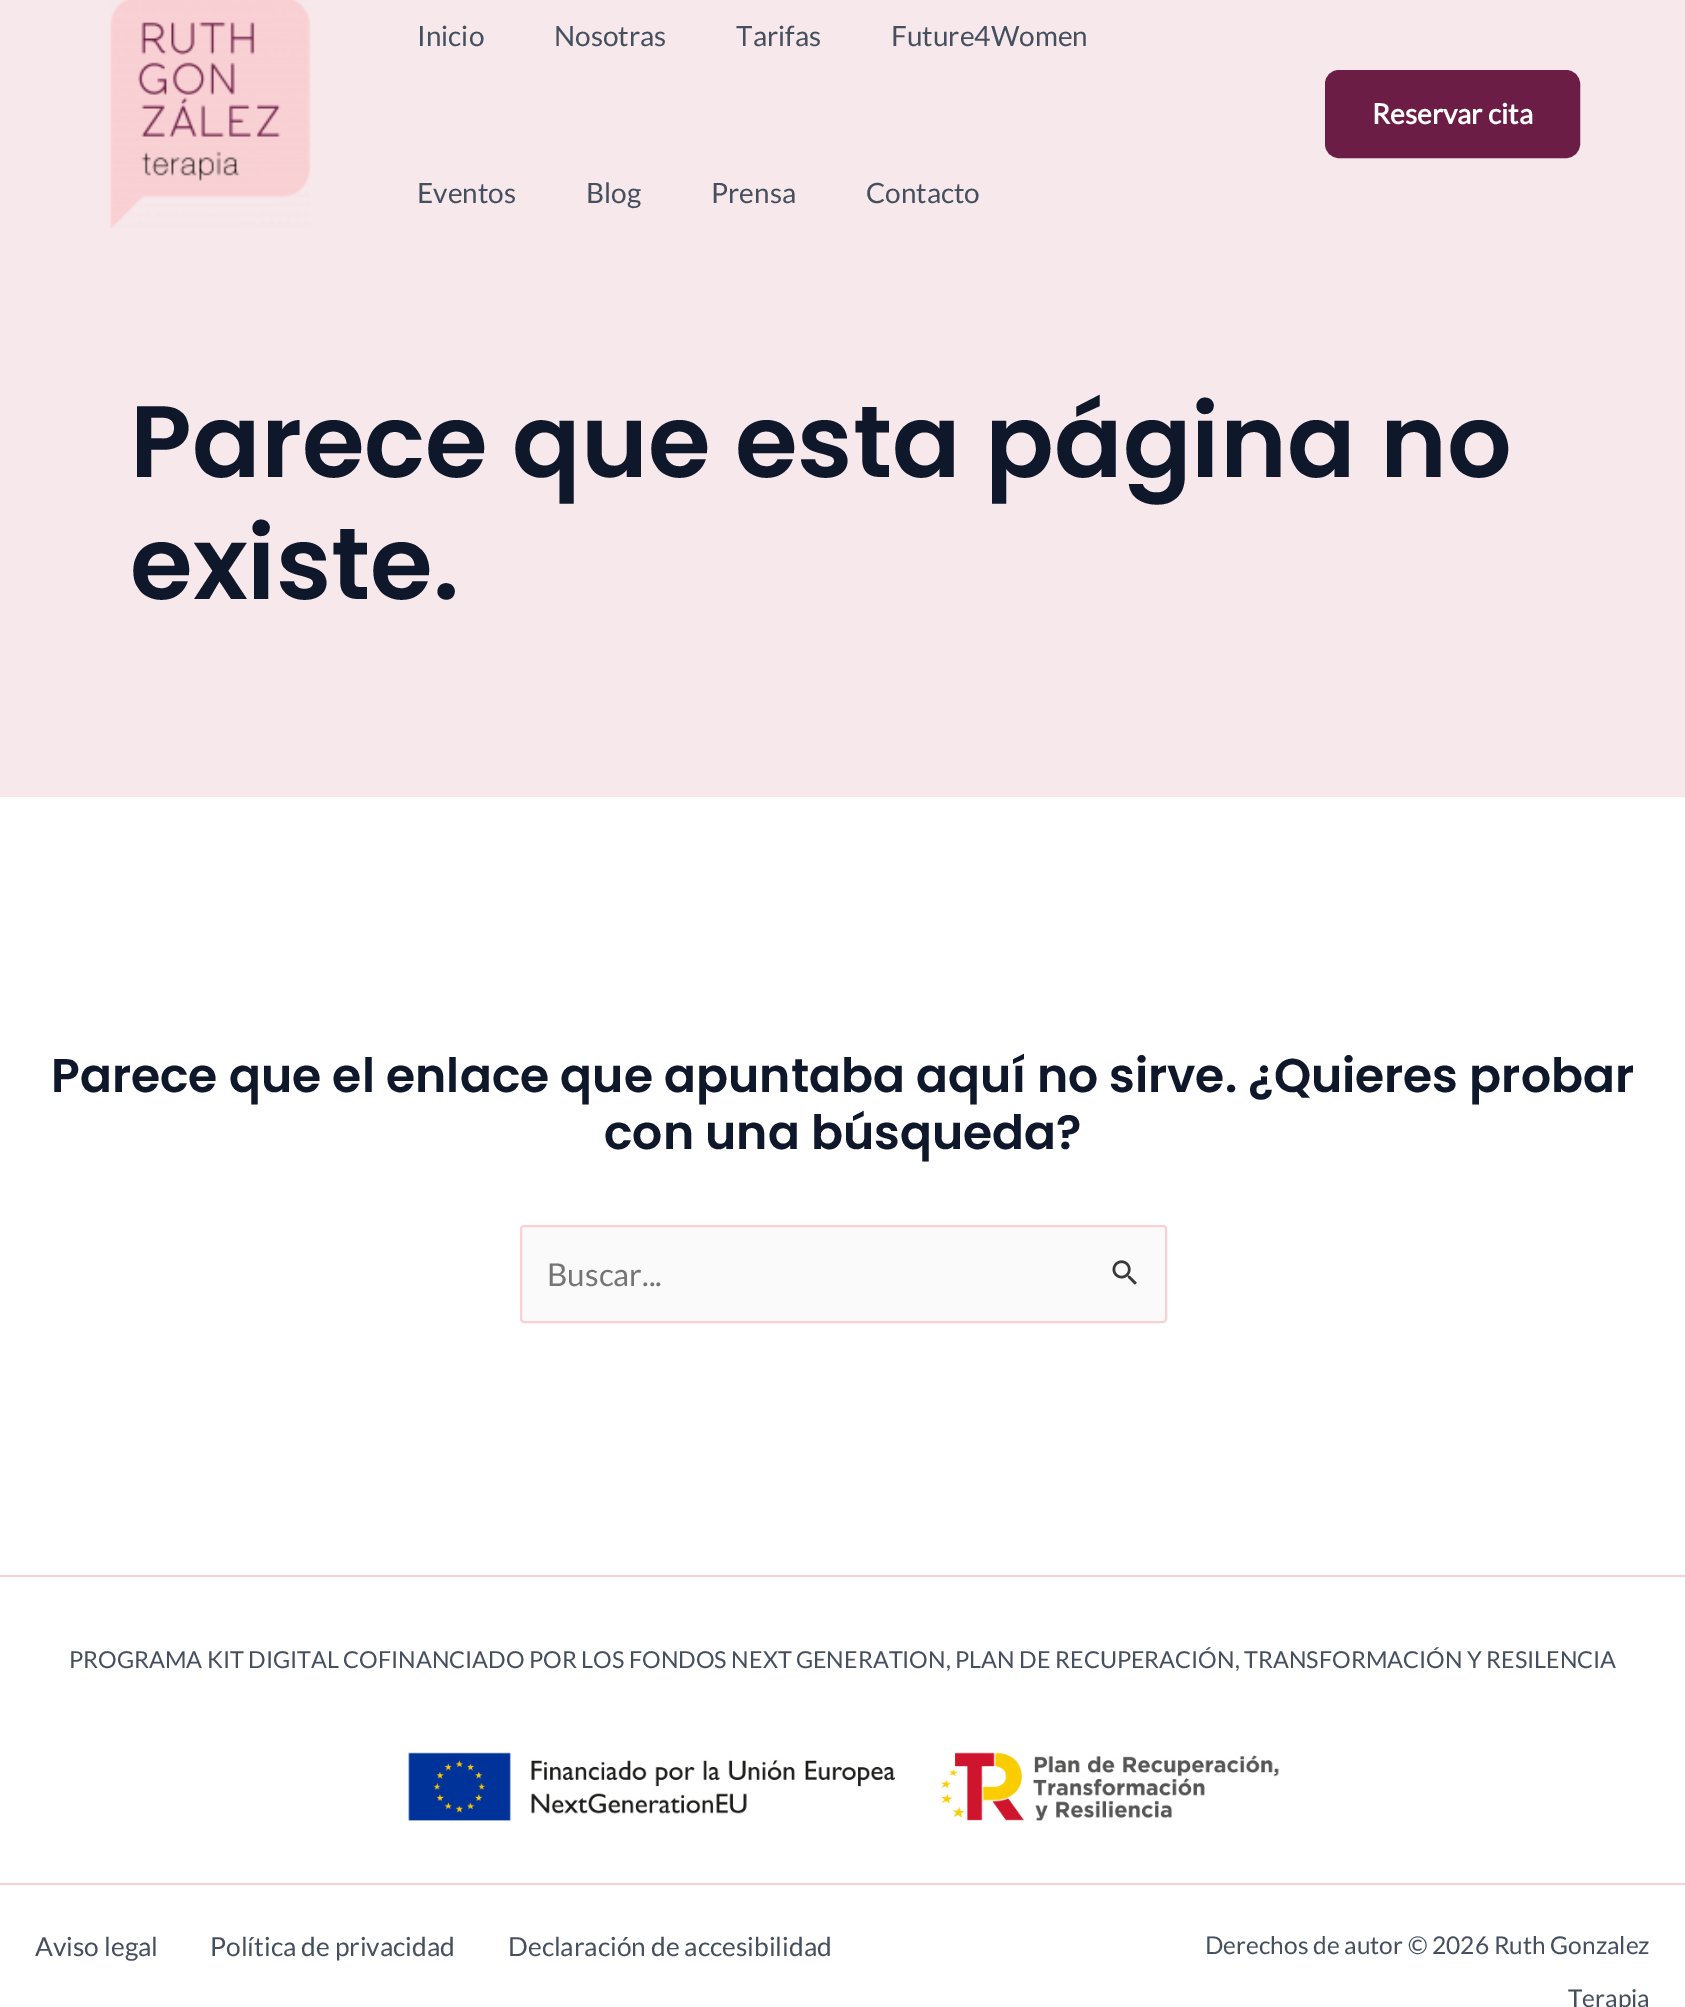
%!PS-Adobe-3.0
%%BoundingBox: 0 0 1685 2007
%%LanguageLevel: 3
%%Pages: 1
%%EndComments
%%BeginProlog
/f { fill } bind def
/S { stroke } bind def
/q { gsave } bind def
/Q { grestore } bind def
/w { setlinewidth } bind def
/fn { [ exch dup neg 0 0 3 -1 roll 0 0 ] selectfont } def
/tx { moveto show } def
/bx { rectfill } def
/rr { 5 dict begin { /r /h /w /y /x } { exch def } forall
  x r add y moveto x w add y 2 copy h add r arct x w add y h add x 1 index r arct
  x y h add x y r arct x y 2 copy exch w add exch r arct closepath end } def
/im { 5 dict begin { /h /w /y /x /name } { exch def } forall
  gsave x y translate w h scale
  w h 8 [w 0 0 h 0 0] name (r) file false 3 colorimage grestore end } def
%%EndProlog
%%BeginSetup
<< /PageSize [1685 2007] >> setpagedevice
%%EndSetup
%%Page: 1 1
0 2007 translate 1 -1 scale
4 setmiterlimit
1 setgray
0 0 1685 2007 bx
0.969 0.914 0.922 setrgbcolor
0 0 1685 797 bx
(image0.raw) 110 0 201 229 im
/Lato-Regular 28 fn
0.271 0.31 0.369 setrgbcolor
(Inicio) 417 46 tx
(Nosotras) 554 46 tx
(Tarifas) 736 46 tx
(Future4Women) 891 46 tx
(Eventos) 417 203 tx
(Blog) 586 203 tx
(Prensa) 711 203 tx
(Contacto) 866 203 tx
0.424 0.114 0.271 setrgbcolor
1326 71 253 86 13 rr q f Q
2 w
S
/Lato-Bold 28 fn
1 setgray
(Reservar cita) 1372 124 tx
/Poppins-SemiBold 101.5 fn
0.059 0.09 0.165 setrgbcolor
(Parece que esta página no) 130 477 tx
(existe.) 130 599 tx
/Poppins-SemiBold 47.25 fn
(Parece que el enlace que apuntaba aquí no sirve. ¿Quieres probar) 51 1092 tx
(con una búsqueda?) 604 1149 tx
0.98 setgray
521 1226 645 96 3 rr q f Q
0.976 0.82 0.835 setrgbcolor
S
/Lato-Regular 31.5 fn
0.459 setgray
(Buscar...) 547 1286 tx
(image1.raw) 1112 1260 25 25 im
0.976 0.82 0.835 setrgbcolor
0 1575 1685 2 bx
/Lato-Regular 23.33 fn
0.271 0.31 0.369 setrgbcolor
(PROGRAMA KIT DIGITAL COFINANCIADO POR LOS FONDOS NEXT GENERATION, PLAN DE RECUPERACIÓN, TRANSFORMACIÓN Y RESILENCIA) 69 1668 tx
(image2.raw) 408 1752 871 69 im
0.976 0.82 0.835 setrgbcolor
0 1883 1685 2 bx
/Lato-Regular 26.25 fn
0.271 0.31 0.369 setrgbcolor
(Aviso legal) 35 1956 tx
(Política de privacidad) 210 1956 tx
(Declaración de accesibilidad) 508 1956 tx
/Lato-Regular 24.5 fn
(Derechos de autor © 2026 Ruth Gonzalez) 1205 1954 tx
(Terapia) 1568 2007 tx
showpage
%%EOF
